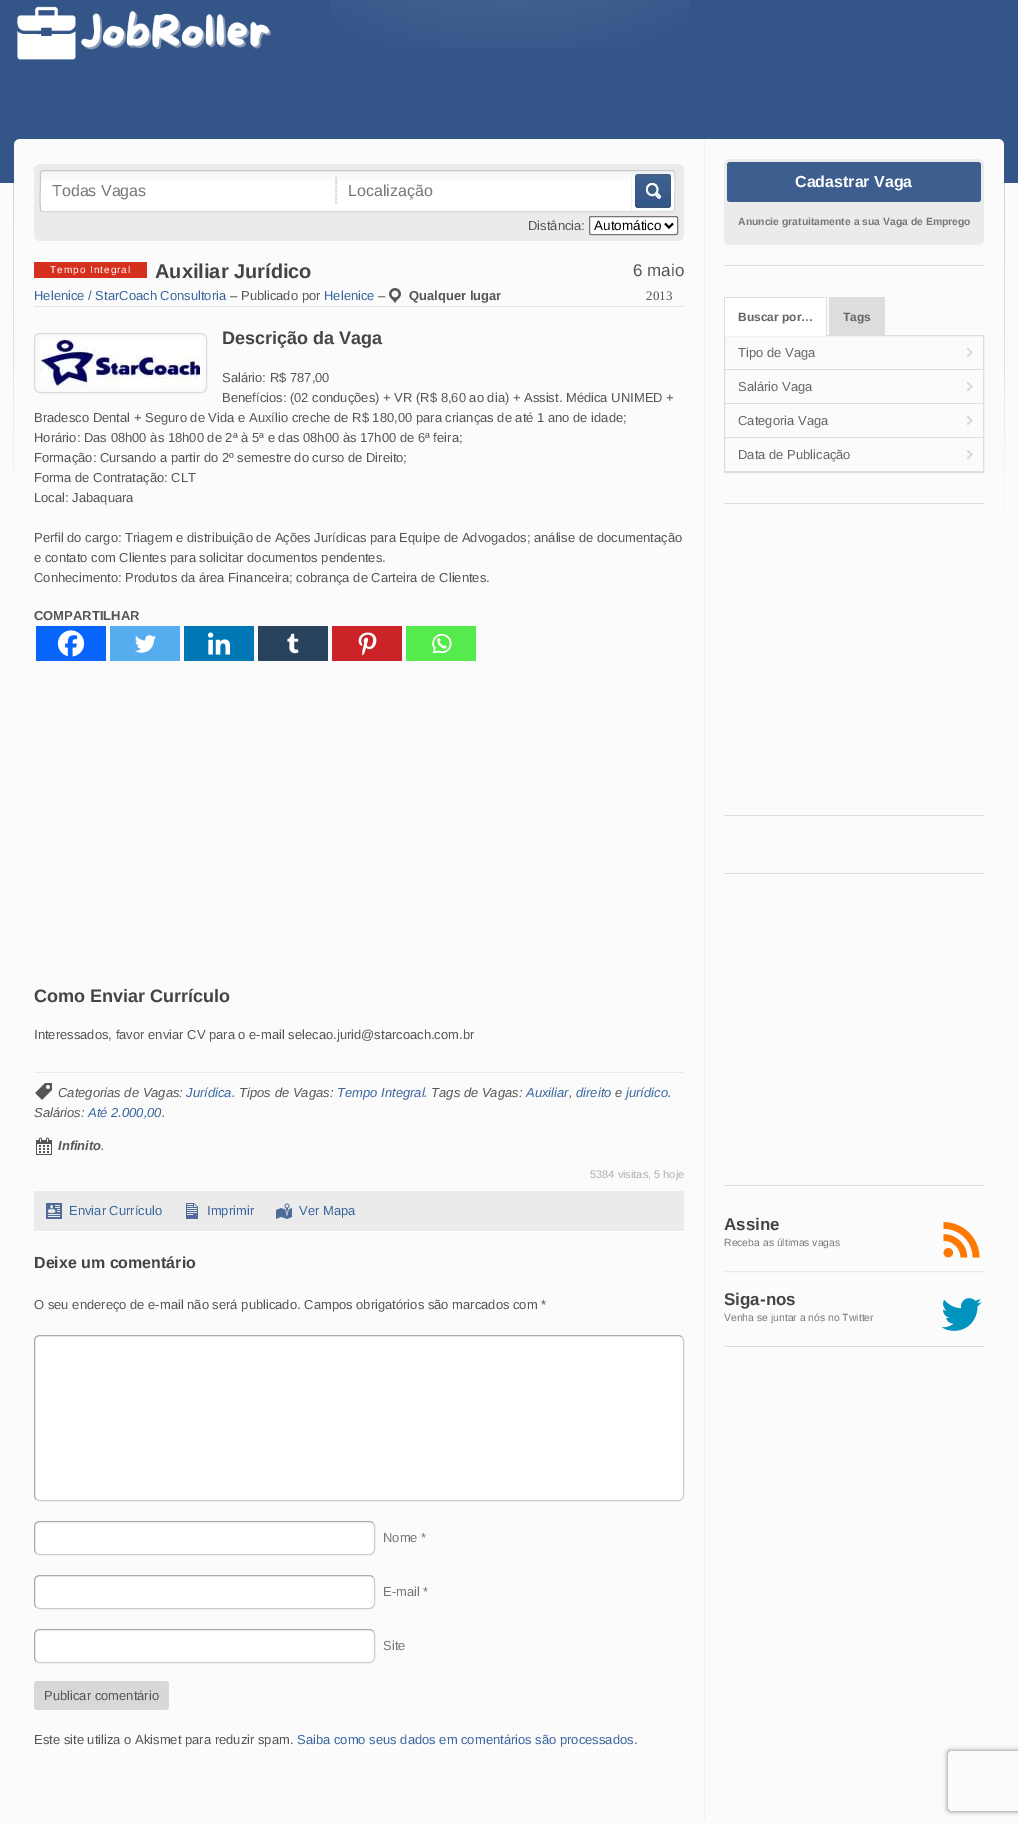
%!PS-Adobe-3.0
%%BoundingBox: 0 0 1018 1825
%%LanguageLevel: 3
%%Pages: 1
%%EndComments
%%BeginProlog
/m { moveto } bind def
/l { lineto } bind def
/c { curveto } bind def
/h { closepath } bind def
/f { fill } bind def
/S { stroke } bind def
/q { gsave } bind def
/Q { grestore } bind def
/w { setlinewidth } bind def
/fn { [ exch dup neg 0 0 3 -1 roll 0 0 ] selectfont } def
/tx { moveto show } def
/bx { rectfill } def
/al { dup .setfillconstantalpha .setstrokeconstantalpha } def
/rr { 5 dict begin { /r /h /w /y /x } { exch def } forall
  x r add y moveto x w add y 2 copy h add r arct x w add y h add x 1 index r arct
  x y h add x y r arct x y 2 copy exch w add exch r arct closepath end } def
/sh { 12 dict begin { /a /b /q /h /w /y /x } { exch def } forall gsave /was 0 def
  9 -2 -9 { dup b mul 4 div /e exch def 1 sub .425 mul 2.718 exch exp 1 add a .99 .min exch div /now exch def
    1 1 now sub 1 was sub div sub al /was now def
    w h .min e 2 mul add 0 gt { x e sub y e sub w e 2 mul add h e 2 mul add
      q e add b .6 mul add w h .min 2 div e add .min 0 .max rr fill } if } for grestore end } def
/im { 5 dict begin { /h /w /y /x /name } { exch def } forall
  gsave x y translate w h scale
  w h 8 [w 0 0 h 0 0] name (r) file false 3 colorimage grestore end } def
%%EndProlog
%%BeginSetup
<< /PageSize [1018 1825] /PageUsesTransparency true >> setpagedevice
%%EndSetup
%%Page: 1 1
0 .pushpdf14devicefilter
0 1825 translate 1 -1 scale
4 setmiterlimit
0.984 setgray
0 0 1018 1825 bx
0.2 0.333 0.533 setrgbcolor
0 0 1018 183 bx
(image0.raw) 330 0 360 49 im
(image1.raw) 17 6 254 54 im
(image2.raw) 13 183 992 328 im
0.984 setgray
14 139 990 1681 6 rr f
0.945 setgray
704 139 1 1681 bx
0.922 setgray
34 164 650 77 6 rr f
(image3.raw) 40 171 635 41 im
0.847 setgray
674 171 m 675.5 173 674.5 199 674.5 203 c 674.5 204.5 676 211.5 672 211.5 c 42 211.5 l 41 211 l S
0.776 setgray
41 211 m 39.5 209 40.5 183 40.5 179 c 40.5 177.5 39 170.5 43 170.5 c 673 170.5 l 674 171 l S
0.8 setgray
[1 1] 0 setdash
335.5 177 m 335.5 205 l S
/LiberationSans-Regular 16 fn
0.467 setgray
(Todas Vagas) 52 196 tx
0.8 setgray
336.5 177 m 336.5 205 l S
0.467 setgray
(Localização) 348 196 tx
(image4.raw) 631 171 41 40 im
/LiberationSans-Regular 13 fn
0.333 setgray
(Distância:) 528 230 tx
1 setgray
589.5 216.5 88 18 1.5 rr q f Q
0.463 setgray
[] 0 setdash
S
0 setgray
2 w
665 223.5 m 669 227.5 l 673 223.5 l S
/LiberationSans-Regular 13.5 fn
(Automático) 594 230 tx
0.894 setgray
34 306 650 1 bx
0.843 0.184 0.114 setrgbcolor
34 262 113 16 bx
/LiberationSans-Regular 10 fn
1 setgray
50 273 m 1 0 (Tempo Integral) ashow
/LiberationSans-Bold 20 fn
0.267 setgray
(Auxiliar Jurídico) 155 278 tx
/LiberationSans-Regular 17 fn
0.333 setgray
(6 maio) 633 276 tx
/LiberationSerif-Regular 13 fn
(2013) 646 300 tx
/LiberationSans-Regular 13 fn
0.224 0.4 0.62 setrgbcolor
(Helenice / StarCoach Consultoria) 34 300 tx
0.333 setgray
(– Publicado por) 230 300 tx
0.224 0.4 0.62 setrgbcolor
(Helenice) 324 300 tx
0.333 setgray
(–) 378 300 tx
(image5.raw) 389 288 12 16 im
/LiberationSans-Bold 13 fn
(Qualquer lugar) 409 300 tx
1 setgray
34 327 650 1 bx
0.855 0.859 0.867 setrgbcolor
1 w
34.5 333.5 172 59 5.5 rr S
(image6.raw) 40 339 161 48 im
/LiberationSans-Bold 18 fn
0.267 setgray
(Descrição da Vaga) 222 344 tx
/LiberationSans-Regular 13 fn
0.333 setgray
(Salário: R$ 787,00) 222 382 tx
(Benefícios: \(02 conduções\) + VR \(R$ 8,60 ao dia\) + Assist. Médica UNIMED +) 222 402 tx
(Bradesco Dental + Seguro de Vida e Auxílio creche de R$ 180,00 para crianças de até 1 ano de idade;) 34 422 tx
(Horário: Das 08h00 às 18h00 de 2ª à 5ª e das 08h00 às 17h00 de 6ª feira;) 34 442 tx
(Formação: Cursando a partir do 2º semestre do curso de Direito;) 34 462 tx
(Forma de Contratação: CLT) 34 482 tx
(Local: Jabaquara) 34 502 tx
(Perfil do cargo: Triagem e distribuição de Ações Jurídicas para Equipe de Advogados; análise de documentação) 34 542 tx
(e contato com Clientes para solicitar documentos pendentes.) 34 562 tx
(Conhecimento: Produtos da área Financeira; cobrança de Carteira de Clientes.) 34 582 tx
/LiberationSans-Bold 13 fn
(COMPARTILHAR) 34 620 tx
0.027 0.396 0.996 setrgbcolor
36 626 70 35 bx
(image7.raw) 57 630 28 27 im
0.333 0.675 0.933 setrgbcolor
110 626 70 35 bx
(image8.raw) 135 635 21 18 im
0 0.467 0.71 setrgbcolor
184 626 70 35 bx
(image9.raw) 208 632 23 23 im
0.161 0.263 0.365 setrgbcolor
258 626 70 35 bx
(image10.raw) 287 633 12 21 im
0.8 0.137 0.161 setrgbcolor
332 626 70 35 bx
(image11.raw) 358 632 19 24 im
0.333 0.922 0.298 setrgbcolor
406 626 70 35 bx
(image12.raw) 432 633 20 21 im
/LiberationSans-Bold 18 fn
0.267 setgray
(Como Enviar Currículo) 34 1002 tx
/LiberationSans-Regular 13 fn
0.333 setgray
(Interessados, favor enviar CV para o e-mail selecao.jurid@starcoach.com.br) 34 1039 tx
0.918 setgray
34 1072 650 1 bx
(image13.raw) 35 1083 17 17 im
/LiberationSans-Italic 13 fn
0.333 setgray
(Categorias de Vagas:) 58 1097 tx
0.224 0.4 0.62 setrgbcolor
(Jurídica) 186 1097 tx
0.333 setgray
(. Tipos de Vagas:) 232 1097 tx
0.224 0.4 0.62 setrgbcolor
(Tempo Integral) 337 1097 tx
0.333 setgray
(. Tags de Vagas:) 424 1097 tx
0.224 0.4 0.62 setrgbcolor
(Auxiliar) 526 1097 tx
0.333 setgray
(,) 569 1097 tx
0.224 0.4 0.62 setrgbcolor
(direito) 576 1097 tx
0.333 setgray
(e) 615 1097 tx
0.224 0.4 0.62 setrgbcolor
(jurídico) 626 1097 tx
0.333 setgray
(.) 668 1097 tx
(Salários:) 34 1117 tx
0.224 0.4 0.62 setrgbcolor
(Até 2.000,00) 88 1117 tx
0.333 setgray
(.) 162 1117 tx
(image14.raw) 36 1137 16 18 im
/LiberationSans-BoldItalic 13 fn
(Infinito) 58 1150 tx
/LiberationSans-Italic 13 fn
(.) 101 1150 tx
/LiberationSans-Regular 11 fn
0.686 setgray
(5384 visitas, 5 hoje) 590 1178 tx
0.922 setgray
34 1191 650 40 bx
(image15.raw) 46 1203 16 16 im
/LiberationSans-Regular 13 fn
0.224 0.4 0.62 setrgbcolor
(Enviar Currículo) 69 1215 tx
(image16.raw) 186 1203 12 16 im
(Imprimir) 207 1215 tx
(image17.raw) 276 1203 16 16 im
(Ver Mapa) 299 1215 tx
1 setgray
34 1231 650 1 bx
/LiberationSans-Bold 16 fn
0.267 setgray
(Deixe um comentário) 34 1268 tx
/LiberationSans-Regular 13 fn
0.333 setgray
(O seu endereço de e-mail não será publicado. Campos obrigatórios são marcados com *) 34 1309 tx
1 setgray
34 1335 650 166 6 rr f
0.8 setgray
682 1337 m 683 1338 683.5 1339.5 683.5 1341 c 683.5 1495 l 683.5 1496.5 683 1498 682 1499 c 681 1500 679.5 1500.5 678 1500.5 c 40 1500.5 l 38.5 1500.5 37 1500 36 1499 c S
0.667 setgray
36 1499 m 35 1498 34.5 1496.5 34.5 1495 c 34.5 1341 l 34.5 1339.5 35 1338 36 1337 c 37 1336 38.5 1335.5 40 1335.5 c 678 1335.5 l 679.5 1335.5 681 1336 682 1337 c S
1 setgray
34 1521 341 34 6 rr f
0.8 setgray
373 1523 m 374 1524 374.5 1525.5 374.5 1527 c 374.5 1549 l 374.5 1550.5 374 1552 373 1553 c 372 1554 370.5 1554.5 369 1554.5 c 40 1554.5 l 38.5 1554.5 37 1554 36 1553 c S
0.667 setgray
36 1553 m 35 1552 34.5 1550.5 34.5 1549 c 34.5 1527 l 34.5 1525.5 35 1524 36 1523 c 37 1522 38.5 1521.5 40 1521.5 c 369 1521.5 l 370.5 1521.5 372 1522 373 1523 c S
0.467 setgray
(Nome *) 383 1542 tx
1 setgray
34 1575 341 34 6 rr f
0.8 setgray
373 1577 m 374 1578 374.5 1579.5 374.5 1581 c 374.5 1603 l 374.5 1604.5 374 1606 373 1607 c 372 1608 370.5 1608.5 369 1608.5 c 40 1608.5 l 38.5 1608.5 37 1608 36 1607 c S
0.667 setgray
36 1607 m 35 1606 34.5 1604.5 34.5 1603 c 34.5 1581 l 34.5 1579.5 35 1578 36 1577 c 37 1576 38.5 1575.5 40 1575.5 c 369 1575.5 l 370.5 1575.5 372 1576 373 1577 c S
0.467 setgray
(E-mail *) 383 1596 tx
1 setgray
34 1629 341 34 6 rr f
0.8 setgray
373 1631 m 374 1632 374.5 1633.5 374.5 1635 c 374.5 1657 l 374.5 1658.5 374 1660 373 1661 c 372 1662 370.5 1662.5 369 1662.5 c 40 1662.5 l 38.5 1662.5 37 1662 36 1661 c S
0.667 setgray
36 1661 m 35 1660 34.5 1658.5 34.5 1657 c 34.5 1635 l 34.5 1633.5 35 1632 36 1631 c 37 1630 38.5 1629.5 40 1629.5 c 369 1629.5 l 370.5 1629.5 372 1630 373 1631 c S
0.467 setgray
(Site) 383 1650 tx
0.847 setgray
34 1681 135 29 3 rr f
0.333 setgray
(Publicar comentário) 44 1700 tx
(Este site utiliza o Akismet para reduzir spam.) 34 1744 tx
0.224 0.4 0.62 setrgbcolor
(Saiba como seus dados em comentários são processados) 297 1744 tx
0.333 setgray
(.) 634 1744 tx
1 setgray
724 1347 260 1 bx
0.867 setgray
724 265 260 1 bx
0.922 setgray
724 159 260 86 6 rr f
0.239 0.369 0.557 setrgbcolor
727 162 254 40 3 rr f
/LiberationSans-Bold 16 fn
1 setgray
(Cadastrar Vaga) 795 187 tx
/LiberationSans-Bold 10.4 fn
0.467 setgray
(Anuncie gratuitamente a sua Vaga de Emprego) 738 225 tx
1 setgray
724 266 260 1 bx
0.867 setgray
724 503 260 1 bx
724.5 335.5 259 137 rectstroke
1 setgray
725 298 101 38 bx
0.867 setgray
724 297 103 1 bx
826 297 1 39 bx
724 297 1 39 bx
/LiberationSans-Bold 12 fn
0.4 setgray
(Buscar por…) 738 321 tx
0.867 setgray
829 297 56 38 bx
0.4 setgray
(Tags) 843 321 tx
(image18.raw) 967 348 6 9 im
0.867 setgray
725 369 258 1 bx
/LiberationSans-Regular 13 fn
0.4 setgray
(Tipo de Vaga) 738 357 tx
(image18.raw) 967 382 6 9 im
0.867 setgray
725 403 258 1 bx
0.4 setgray
(Salário Vaga) 738 391 tx
(image18.raw) 967 416 6 9 im
0.867 setgray
725 437 258 1 bx
0.4 setgray
(Categoria Vaga) 738 425 tx
(image18.raw) 967 450 6 9 im
0.867 setgray
725 471 258 1 bx
0.4 setgray
(Data de Publicação) 738 459 tx
1 setgray
724 504 260 1 bx
0.867 setgray
724 815 260 1 bx
1 setgray
724 816 260 1 bx
0.867 setgray
724 873 260 1 bx
1 setgray
724 874 260 1 bx
0.867 setgray
724 1185 260 1 bx
1 setgray
724 1186 260 1 bx
0.867 setgray
724 1346 260 1 bx
/LiberationSans-Bold 17 fn
0.267 setgray
(Assine) 724 1230 tx
(image19.raw) 943 1222 37 36 im
/LiberationSans-Regular 10.4 fn
0.467 setgray
(Receba as últimas vagas) 724 1246 tx
0.847 setgray
[1 1] 0 setdash
724 1271.5 m 984 1271.5 l S
/LiberationSans-Bold 17 fn
0.267 setgray
(Siga-nos) 724 1305 tx
(image20.raw) 941 1298 41 33 im
/LiberationSans-Regular 10.4 fn
0.467 setgray
(Venha se juntar a nós no Twitter) 724 1321 tx
q
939 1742 m 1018 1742 l 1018 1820 l 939 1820 l h 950 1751 m 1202 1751 l 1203 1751 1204 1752 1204 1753 c 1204 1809 l 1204 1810 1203 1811 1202 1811 c 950 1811 l 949 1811 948 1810 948 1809 c 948 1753 l 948 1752 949 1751 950 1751 c h eoclip newpath
0.502 setgray
948 1751 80 60 2 2.5 1 sh
Q
.poppdf14devicefilter showpage
%%EOF
